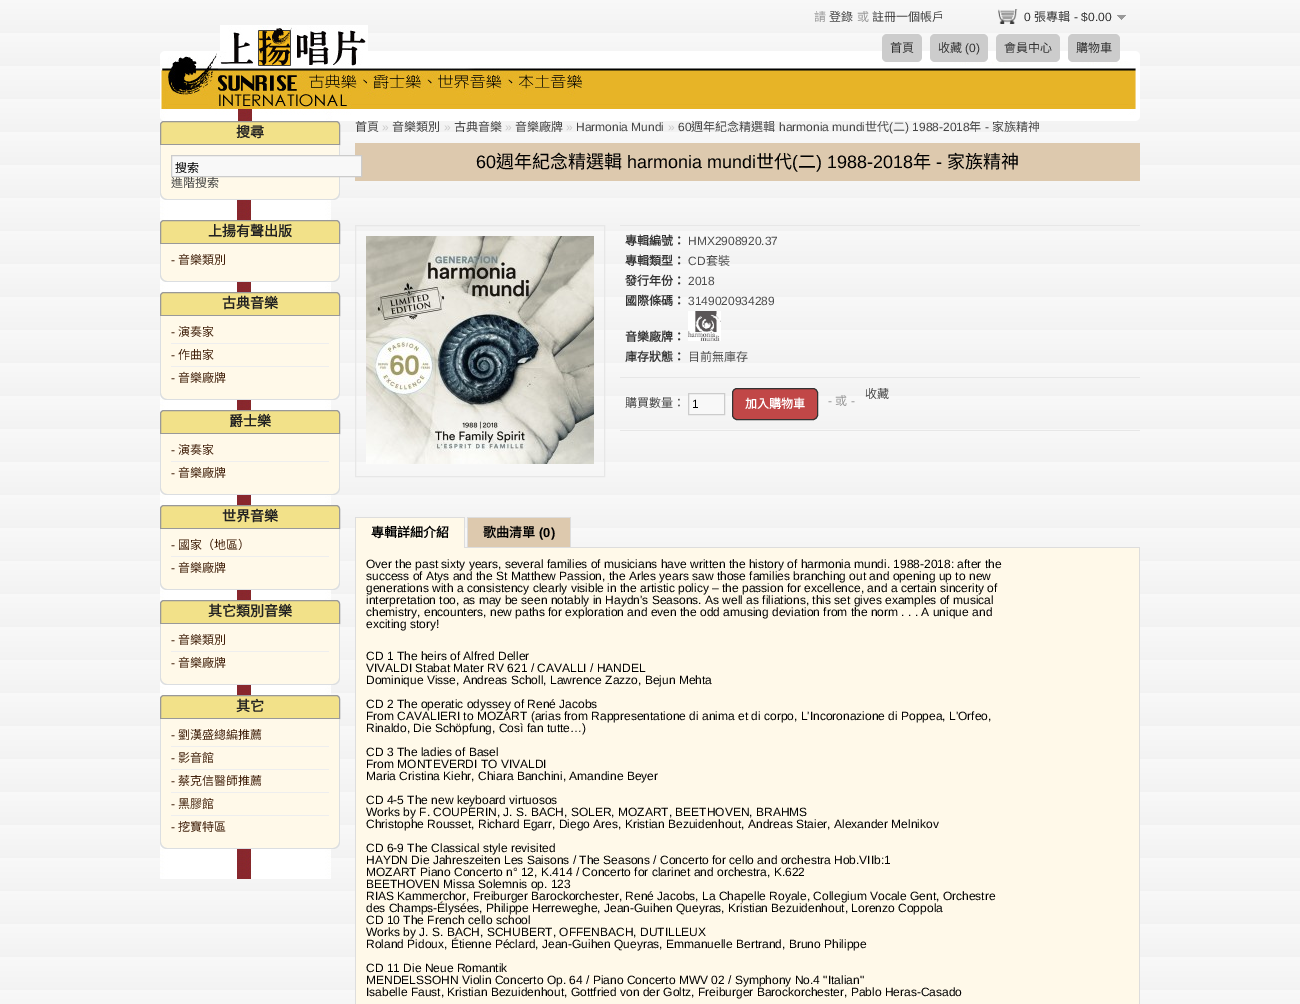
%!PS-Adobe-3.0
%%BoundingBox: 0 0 1300 1004
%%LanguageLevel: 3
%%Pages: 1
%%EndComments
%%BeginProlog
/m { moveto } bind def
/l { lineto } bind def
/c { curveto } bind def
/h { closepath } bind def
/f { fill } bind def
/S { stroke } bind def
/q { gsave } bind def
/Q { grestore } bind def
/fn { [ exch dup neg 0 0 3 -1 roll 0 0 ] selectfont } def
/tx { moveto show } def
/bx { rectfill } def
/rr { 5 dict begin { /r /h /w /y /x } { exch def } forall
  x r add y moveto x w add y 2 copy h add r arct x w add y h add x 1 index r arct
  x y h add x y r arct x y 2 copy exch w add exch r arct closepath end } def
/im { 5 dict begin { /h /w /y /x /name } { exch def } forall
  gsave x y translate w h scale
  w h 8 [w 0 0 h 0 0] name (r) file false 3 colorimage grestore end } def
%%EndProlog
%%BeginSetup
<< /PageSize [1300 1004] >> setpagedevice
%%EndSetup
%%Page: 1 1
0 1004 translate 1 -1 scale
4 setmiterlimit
1 setgray
0 0 1300 1004 bx
(image0.raw) 0 0 1300 1004 im
/NotoSansCJKHK-Regular 12 fn
0.6 setgray
(請) 814 21 tx
0.267 setgray
(登錄) 829 21 tx
0.6 setgray
(或) 857 21 tx
0.267 setgray
(註冊一個帳戶) 872 21 tx
(image1.raw) 998 9 20 15 im
/LiberationSans-Regular 12 fn
0.2 setgray
(0) 1024 21 tx
/NotoSansCJKHK-Regular 12 fn
(張專輯) 1034 21 tx
/LiberationSans-Regular 12 fn
(- $0.00) 1074 21 tx
(image2.raw) 1117 15 9 5 im
1 setgray
160 51 980 70 5 rr f
(image4.raw) 160 53 976 68 im
(image3.raw) 220 25 148 41 im
0.8 setgray
882 34 40 28 5 rr f
/NotoSansCJKHK-Regular 12 fn
0.2 setgray
(首頁) 890 52 tx
0.8 setgray
930 34 58 28 5 rr f
0.2 setgray
(收藏) 938 52 tx
/LiberationSans-Regular 12 fn
(\(0\)) 965 52 tx
0.8 setgray
996 34 64 28 5 rr f
/NotoSansCJKHK-Regular 12 fn
0.2 setgray
(會員中心) 1004 52 tx
0.8 setgray
1068 34 52 28 5 rr f
0.2 setgray
(購物車) 1076 52 tx
(image5.raw) 160 121 171 758 im
0.949 0.882 0.537 setrgbcolor
164 121.5 m 336 121.5 l 338 121.5 339.5 123 339.5 125 c 339.5 144.5 l 160.5 144.5 l 160.5 125 l 160.5 123 162 121.5 164 121.5 c h q f Q
0.6 setgray
S
/NotoSansCJKHK-Bold 14 fn
0.133 setgray
(搜尋) 236 137 tx
1 0.976 0.914 setrgbcolor
160 145 m 340 145 l 340 193 l 340 197 337 200 333 200 c 167 200 l 163 200 160 197 160 193 c h f
0.859 0.871 0.882 setrgbcolor
160 145 m 340 145 l 340 193 l 340 197 337 200 333 200 c 167 200 l 163 200 160 197 160 193 c h 161 145 m 339 145 l 339 193 l 339 196 336 199 333 199 c 167 199 l 164 199 161 196 161 193 c h eofill
0.867 0.788 0.682 setrgbcolor
355 143 785 38 bx
0.973 setgray
171.5 155.5 m 361.5 155.5 l 361.5 176.5 l 171.5 176.5 l h q f Q
0.8 setgray
S
/NotoSansCJKHK-Regular 12 fn
0 setgray
(搜索) 175 172 tx
0.267 setgray
(進階搜索) 171 187 tx
0.949 0.882 0.537 setrgbcolor
164 220.5 m 336 220.5 l 338 220.5 339.5 222 339.5 224 c 339.5 243.5 l 160.5 243.5 l 160.5 224 l 160.5 222 162 220.5 164 220.5 c h q f Q
0.6 setgray
S
/NotoSansCJKHK-Bold 14 fn
0.133 setgray
(上揚有聲出版) 208 236 tx
1 0.976 0.914 setrgbcolor
160 244 m 340 244 l 340 275 l 340 279 337 282 333 282 c 167 282 l 163 282 160 279 160 275 c h f
0.859 0.871 0.882 setrgbcolor
160 244 m 340 244 l 340 275 l 340 279 337 282 333 282 c 167 282 l 163 282 160 279 160 275 c h 161 244 m 339 244 l 339 275 l 339 278 336 281 333 281 c 167 281 l 164 281 161 278 161 275 c h eofill
/LiberationSans-Regular 12 fn
0.259 0.129 0.043 setrgbcolor
(-) 171 264 tx
/NotoSansCJKHK-Regular 12 fn
(音樂類別) 178 264 tx
0.949 0.882 0.537 setrgbcolor
164 292.5 m 336 292.5 l 338 292.5 339.5 294 339.5 296 c 339.5 315.5 l 160.5 315.5 l 160.5 296 l 160.5 294 162 292.5 164 292.5 c h q f Q
0.6 setgray
S
/NotoSansCJKHK-Bold 14 fn
0.133 setgray
(古典音樂) 222 308 tx
1 0.976 0.914 setrgbcolor
160 316 m 340 316 l 340 393 l 340 397 337 400 333 400 c 167 400 l 163 400 160 397 160 393 c h f
0.859 0.871 0.882 setrgbcolor
160 316 m 340 316 l 340 393 l 340 397 337 400 333 400 c 167 400 l 163 400 160 397 160 393 c h 161 316 m 339 316 l 339 393 l 339 396 336 399 333 399 c 167 399 l 164 399 161 396 161 393 c h eofill
/LiberationSans-Regular 12 fn
0.259 0.129 0.043 setrgbcolor
(-) 171 336 tx
/NotoSansCJKHK-Regular 12 fn
(演奏家) 178 336 tx
0.933 setgray
171 343 158 1 bx
/LiberationSans-Regular 12 fn
0.259 0.129 0.043 setrgbcolor
(-) 171 359 tx
/NotoSansCJKHK-Regular 12 fn
(作曲家) 178 359 tx
0.933 setgray
171 366 158 1 bx
/LiberationSans-Regular 12 fn
0.259 0.129 0.043 setrgbcolor
(-) 171 382 tx
/NotoSansCJKHK-Regular 12 fn
(音樂廠牌) 178 382 tx
0.949 0.882 0.537 setrgbcolor
164 410.5 m 336 410.5 l 338 410.5 339.5 412 339.5 414 c 339.5 433.5 l 160.5 433.5 l 160.5 414 l 160.5 412 162 410.5 164 410.5 c h q f Q
0.6 setgray
S
/NotoSansCJKHK-Bold 14 fn
0.133 setgray
(爵士樂) 229 426 tx
1 0.976 0.914 setrgbcolor
160 434 m 340 434 l 340 488 l 340 492 337 495 333 495 c 167 495 l 163 495 160 492 160 488 c h f
0.859 0.871 0.882 setrgbcolor
160 434 m 340 434 l 340 488 l 340 492 337 495 333 495 c 167 495 l 163 495 160 492 160 488 c h 161 434 m 339 434 l 339 488 l 339 491 336 494 333 494 c 167 494 l 164 494 161 491 161 488 c h eofill
/LiberationSans-Regular 12 fn
0.259 0.129 0.043 setrgbcolor
(-) 171 454 tx
/NotoSansCJKHK-Regular 12 fn
(演奏家) 178 454 tx
0.933 setgray
171 461 158 1 bx
/LiberationSans-Regular 12 fn
0.259 0.129 0.043 setrgbcolor
(-) 171 477 tx
/NotoSansCJKHK-Regular 12 fn
(音樂廠牌) 178 477 tx
0.949 0.882 0.537 setrgbcolor
164 505.5 m 336 505.5 l 338 505.5 339.5 507 339.5 509 c 339.5 528.5 l 160.5 528.5 l 160.5 509 l 160.5 507 162 505.5 164 505.5 c h q f Q
0.6 setgray
S
/NotoSansCJKHK-Bold 14 fn
0.133 setgray
(世界音樂) 222 521 tx
1 0.976 0.914 setrgbcolor
160 529 m 340 529 l 340 583 l 340 587 337 590 333 590 c 167 590 l 163 590 160 587 160 583 c h f
0.859 0.871 0.882 setrgbcolor
160 529 m 340 529 l 340 583 l 340 587 337 590 333 590 c 167 590 l 163 590 160 587 160 583 c h 161 529 m 339 529 l 339 583 l 339 586 336 589 333 589 c 167 589 l 164 589 161 586 161 583 c h eofill
/LiberationSans-Regular 12 fn
0.259 0.129 0.043 setrgbcolor
(-) 171 549 tx
/NotoSansCJKHK-Regular 12 fn
(國家（地區）) 178 549 tx
0.933 setgray
171 556 158 1 bx
/LiberationSans-Regular 12 fn
0.259 0.129 0.043 setrgbcolor
(-) 171 572 tx
/NotoSansCJKHK-Regular 12 fn
(音樂廠牌) 178 572 tx
0.949 0.882 0.537 setrgbcolor
164 600.5 m 336 600.5 l 338 600.5 339.5 602 339.5 604 c 339.5 623.5 l 160.5 623.5 l 160.5 604 l 160.5 602 162 600.5 164 600.5 c h q f Q
0.6 setgray
S
/NotoSansCJKHK-Bold 14 fn
0.133 setgray
(其它類別音樂) 208 616 tx
1 0.976 0.914 setrgbcolor
160 624 m 340 624 l 340 678 l 340 682 337 685 333 685 c 167 685 l 163 685 160 682 160 678 c h f
0.859 0.871 0.882 setrgbcolor
160 624 m 340 624 l 340 678 l 340 682 337 685 333 685 c 167 685 l 163 685 160 682 160 678 c h 161 624 m 339 624 l 339 678 l 339 681 336 684 333 684 c 167 684 l 164 684 161 681 161 678 c h eofill
/LiberationSans-Regular 12 fn
0.259 0.129 0.043 setrgbcolor
(-) 171 644 tx
/NotoSansCJKHK-Regular 12 fn
(音樂類別) 178 644 tx
0.933 setgray
171 651 158 1 bx
/LiberationSans-Regular 12 fn
0.259 0.129 0.043 setrgbcolor
(-) 171 667 tx
/NotoSansCJKHK-Regular 12 fn
(音樂廠牌) 178 667 tx
0.949 0.882 0.537 setrgbcolor
164 695.5 m 336 695.5 l 338 695.5 339.5 697 339.5 699 c 339.5 718.5 l 160.5 718.5 l 160.5 699 l 160.5 697 162 695.5 164 695.5 c h q f Q
0.6 setgray
S
/NotoSansCJKHK-Bold 14 fn
0.133 setgray
(其它) 236 711 tx
1 0.976 0.914 setrgbcolor
160 719 m 340 719 l 340 842 l 340 846 337 849 333 849 c 167 849 l 163 849 160 846 160 842 c h f
0.859 0.871 0.882 setrgbcolor
160 719 m 340 719 l 340 842 l 340 846 337 849 333 849 c 167 849 l 163 849 160 846 160 842 c h 161 719 m 339 719 l 339 842 l 339 845 336 848 333 848 c 167 848 l 164 848 161 845 161 842 c h eofill
/LiberationSans-Regular 12 fn
0.259 0.129 0.043 setrgbcolor
(-) 171 739 tx
/NotoSansCJKHK-Regular 12 fn
(劉漢盛總編推薦) 178 739 tx
0.933 setgray
171 746 158 1 bx
/LiberationSans-Regular 12 fn
0.259 0.129 0.043 setrgbcolor
(-) 171 762 tx
/NotoSansCJKHK-Regular 12 fn
(影音館) 178 762 tx
0.933 setgray
171 769 158 1 bx
/LiberationSans-Regular 12 fn
0.259 0.129 0.043 setrgbcolor
(-) 171 785 tx
/NotoSansCJKHK-Regular 12 fn
(蔡克信醫師推薦) 178 785 tx
0.933 setgray
171 792 158 1 bx
/LiberationSans-Regular 12 fn
0.259 0.129 0.043 setrgbcolor
(-) 171 808 tx
/NotoSansCJKHK-Regular 12 fn
(黑膠館) 178 808 tx
0.933 setgray
171 815 158 1 bx
/LiberationSans-Regular 12 fn
0.259 0.129 0.043 setrgbcolor
(-) 171 831 tx
/NotoSansCJKHK-Regular 12 fn
(挖寶特區) 178 831 tx
0.267 setgray
(首頁) 355 131 tx
/LiberationSans-Regular 12 fn
0.8 setgray
(») 382 131 tx
/NotoSansCJKHK-Regular 12 fn
0.267 setgray
(音樂類別) 392 131 tx
/LiberationSans-Regular 12 fn
0.8 setgray
(») 444 131 tx
/NotoSansCJKHK-Regular 12 fn
0.267 setgray
(古典音樂) 454 131 tx
/LiberationSans-Regular 12 fn
0.8 setgray
(») 505 131 tx
/NotoSansCJKHK-Regular 12 fn
0.267 setgray
(音樂廠牌) 515 131 tx
/LiberationSans-Regular 12 fn
0.8 setgray
(») 566 131 tx
0.267 setgray
(Harmonia Mundi) 576 131 tx
0.8 setgray
(») 668 131 tx
0.267 setgray
(60) 678 131 tx
/NotoSansCJKHK-Regular 12 fn
(週年紀念精選輯) 691 131 tx
/LiberationSans-Regular 12 fn
(harmonia mundi) 779 131 tx
/NotoSansCJKHK-Regular 12 fn
(世代) 865 131 tx
/LiberationSans-Regular 12 fn
(\() 889 131 tx
/NotoSansCJKHK-Regular 12 fn
(二) 893 131 tx
/LiberationSans-Regular 12 fn
(\) 1988-2018) 905 131 tx
/NotoSansCJKHK-Regular 12 fn
(年) 969 131 tx
/LiberationSans-Regular 12 fn
(-) 985 131 tx
/NotoSansCJKHK-Regular 12 fn
(家族精神) 992 131 tx
/LiberationSans-Regular 18 fn
0 setgray
(60) 476 168 tx
/NotoSansCJKHK-Regular 18 fn
(週年紀念精選輯) 496 168 tx
/LiberationSans-Regular 18 fn
(harmonia mundi) 627 168 tx
/NotoSansCJKHK-Regular 18 fn
(世代) 756 168 tx
/LiberationSans-Regular 18 fn
(\() 792 168 tx
/NotoSansCJKHK-Regular 18 fn
(二) 798 168 tx
/LiberationSans-Regular 18 fn
(\) 1988-2018) 816 168 tx
/NotoSansCJKHK-Regular 18 fn
(年) 913 168 tx
/LiberationSans-Regular 18 fn
(-) 936 168 tx
/NotoSansCJKHK-Regular 18 fn
(家族精神) 947 168 tx
0.906 setgray
355.5 225.5 249 251 rectstroke
(image6.raw) 366 236 228 228 im
620 225 520 1 bx
620 377 520 1 bx
/NotoSansCJKHK-Bold 12 fn
0.2 setgray
(專輯編號：) 625 245 tx
/LiberationSans-Regular 12 fn
0.302 setgray
(HMX2908920.37) 688 245 tx
/NotoSansCJKHK-Bold 12 fn
0.2 setgray
(專輯類型：) 625 265 tx
/LiberationSans-Regular 12 fn
0.302 setgray
(CD) 688 265 tx
/NotoSansCJKHK-Regular 12 fn
(套裝) 706 265 tx
/NotoSansCJKHK-Bold 12 fn
0.2 setgray
(發行年份：) 625 285 tx
/LiberationSans-Regular 12 fn
0.302 setgray
(2018) 688 285 tx
/NotoSansCJKHK-Bold 12 fn
0.2 setgray
(國際條碼：) 625 305 tx
/LiberationSans-Regular 12 fn
0.302 setgray
(3149020934289) 688 305 tx
/NotoSansCJKHK-Bold 12 fn
0.2 setgray
(音樂廠牌：) 625 341 tx
(image7.raw) 688 311 33 30 im
(庫存狀態：) 625 361 tx
/NotoSansCJKHK-Regular 12 fn
0.302 setgray
(目前無庫存) 688 361 tx
0.906 setgray
620 430 520 1 bx
0.302 setgray
(購買數量：) 625 407 tx
0.973 setgray
688.5 393.5 m 724.5 393.5 l 724.5 414.5 l 688.5 414.5 l h q f Q
0.8 setgray
S
/LiberationSans-Regular 12 fn
0 setgray
(1) 692 408 tx
0.757 0.278 0.278 setrgbcolor
732.5 388.5 85 31 4.5 rr q f Q
0.2 setgray
S
/NotoSansCJKHK-Bold 12 fn
1 setgray
(加入購物車) 745 408 tx
/LiberationSans-Regular 12 fn
0.6 setgray
(-) 828 405 tx
/NotoSansCJKHK-Regular 12 fn
(或) 835 405 tx
/LiberationSans-Regular 12 fn
(-) 851 405 tx
/NotoSansCJKHK-Regular 12 fn
0.267 setgray
(收藏) 865 398 tx
0.867 setgray
465 547 675 1 bx
1 0.976 0.914 setrgbcolor
356 518 108 30 bx
0.867 setgray
355 517 110 1 bx
464 517 1 31 bx
355 517 1 487 bx
/NotoSansCJKHK-Bold 13 fn
0 setgray
(專輯詳細介紹) 371 537 tx
0.867 0.788 0.682 setrgbcolor
468 518 102 29 bx
0.867 setgray
467 517 104 1 bx
570 517 1 30 bx
467 517 1 30 bx
0 setgray
(歌曲清單) 483 537 tx
/LiberationSans-Bold 13 fn
(\(0\)) 539 537 tx
1 0.976 0.914 setrgbcolor
356 548 783 456 bx
0.867 setgray
1139 548 1 456 bx
/LiberationSans-Regular 12 fn
0 setgray
(Over the past sixty years, several families of musicians have written the history of harmonia mundi. 1988-2018: after the) 366 568 tx
(success of Atys and the St Matthew Passion, the Arles years saw those families branching out and opening up to new) 366 580 tx
(generations with a consistency clearly visible in the artistic policy – the passion for excellence, and a certain sincerity of) 366 592 tx
(interpretation too, as may be seen notably in Haydn's Seasons. As well as filiations, this set gives examples of musical) 366 604 tx
(chemistry, encounters, new paths for exploration and even the odd amusing deviation from the norm . . . A unique and) 366 616 tx
(exciting story!) 366 628 tx
(CD 1 The heirs of Alfred Deller) 366 660 tx
(VIVALDI Stabat Mater RV 621 / CAVALLI / HANDEL) 366 672 tx
(Dominique Visse, Andreas Scholl, Lawrence Zazzo, Bejun Mehta) 366 684 tx
(CD 2 The operatic odyssey of René Jacobs) 366 708 tx
(From CAVALIERI to MOZART \(arias from Rappresentatione di anima et di corpo, L'Incoronazione di Poppea, L'Orfeo,) 366 720 tx
(Rinaldo, Die Schöpfung, Così fan tutte…\)) 366 732 tx
(CD 3 The ladies of Basel) 366 756 tx
(From MONTEVERDI TO VIVALDI) 366 768 tx
(Maria Cristina Kiehr, Chiara Banchini, Amandine Beyer) 366 780 tx
(CD 4-5 The new keyboard virtuosos) 366 804 tx
(Works by F. COUPERIN, J. S. BACH, SOLER, MOZART, BEETHOVEN, BRAHMS) 366 816 tx
(Christophe Rousset, Richard Egarr, Diego Ares, Kristian Bezuidenhout, Andreas Staier, Alexander Melnikov) 366 828 tx
(CD 6-9 The Classical style revisited) 366 852 tx
(HAYDN Die Jahreszeiten Les Saisons / The Seasons / Concerto for cello and orchestra Hob.VIIb:1) 366 864 tx
(MOZART Piano Concerto n° 12, K.414 / Concerto for clarinet and orchestra, K.622) 366 876 tx
(BEETHOVEN Missa Solemnis op. 123) 366 888 tx
(RIAS Kammerchor, Freiburger Barockorchester, René Jacobs, La Chapelle Royale, Collegium Vocale Gent, Orchestre) 366 900 tx
(des Champs-Élysées, Philippe Herreweghe, Jean-Guihen Queyras, Kristian Bezuidenhout, Lorenzo Coppola) 366 912 tx
(CD 10 The French cello school) 366 924 tx
(Works by J. S. BACH, SCHUBERT, OFFENBACH, DUTILLEUX) 366 936 tx
(Roland Pidoux, Étienne Péclard, Jean-Guihen Queyras, Emmanuelle Bertrand, Bruno Philippe) 366 948 tx
(CD 11 Die Neue Romantik) 366 972 tx
(MENDELSSOHN Violin Concerto Op. 64 / Piano Concerto MWV 02 / Symphony No.4 "Italian") 366 984 tx
(Isabelle Faust, Kristian Bezuidenhout, Gottfried von der Goltz, Freiburger Barockorchester, Pablo Heras-Casado) 366 996 tx
showpage
%%EOF
